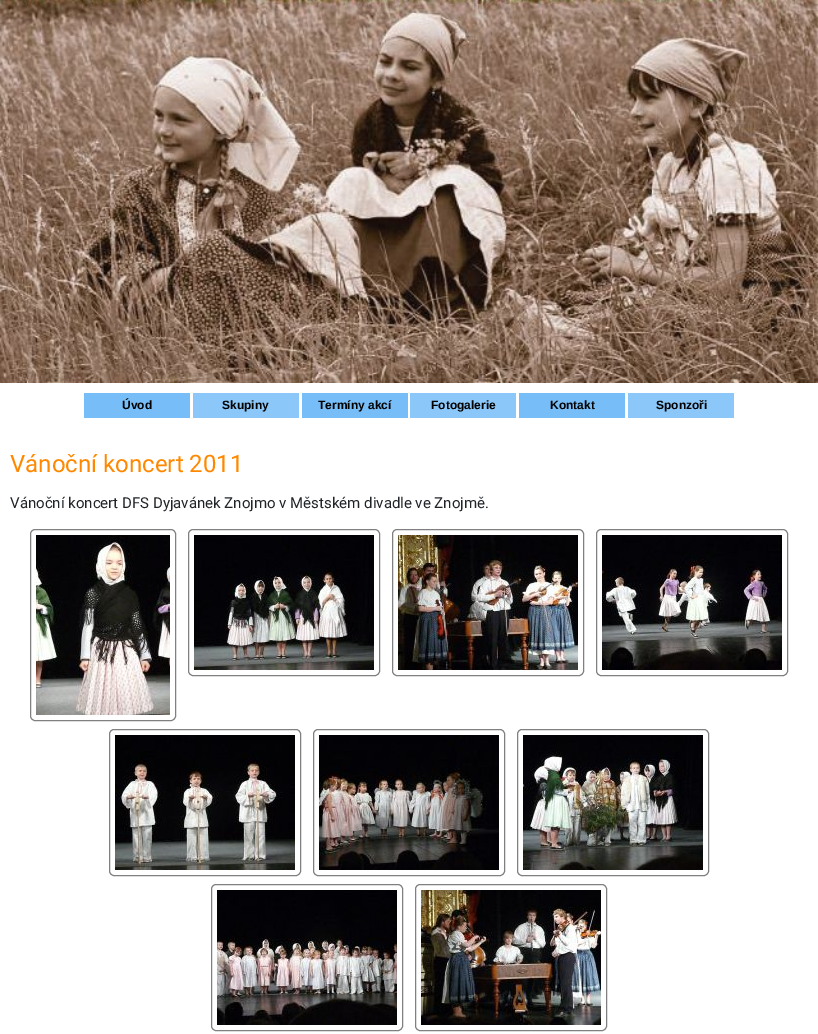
%!PS-Adobe-3.0
%%BoundingBox: 0 0 818 1034
%%LanguageLevel: 3
%%Pages: 1
%%EndComments
%%BeginProlog
/S { stroke } bind def
/fn { [ exch dup neg 0 0 3 -1 roll 0 0 ] selectfont } def
/tx { moveto show } def
/bx { rectfill } def
/rr { 5 dict begin { /r /h /w /y /x } { exch def } forall
  x r add y moveto x w add y 2 copy h add r arct x w add y h add x 1 index r arct
  x y h add x y r arct x y 2 copy exch w add exch r arct closepath end } def
/im { 5 dict begin { /h /w /y /x /name } { exch def } forall
  gsave x y translate w h scale
  w h 8 [w 0 0 h 0 0] name (r) file false 3 colorimage grestore end } def
%%EndProlog
%%BeginSetup
<< /PageSize [818 1034] >> setpagedevice
%%EndSetup
%%Page: 1 1
0 1034 translate 1 -1 scale
4 setmiterlimit
1 setgray
0 0 818 1034 bx
(image0.raw) 0 0 818 383 im
0.467 0.741 0.969 setrgbcolor
84 393 106 25 bx
/LiberationSans-Bold 12 fn
0 setgray
(Úvod) 122 409 tx
0.545 0.78 0.973 setrgbcolor
193 393 106 25 bx
0 setgray
(Skupiny) 222 409 tx
0.467 0.741 0.969 setrgbcolor
302 393 106 25 bx
0 setgray
(Termíny akcí) 318 409 tx
0.545 0.78 0.973 setrgbcolor
410 393 106 25 bx
0 setgray
(Fotogalerie) 431 409 tx
0.467 0.741 0.969 setrgbcolor
519 393 106 25 bx
0 setgray
(Kontakt) 550 409 tx
0.545 0.78 0.973 setrgbcolor
628 393 106 25 bx
0 setgray
(Sponzoři) 656 409 tx
/Roboto-Regular 24 fn
1 0.533 0 setrgbcolor
(Vánoční koncert 2011) 10 472 tx
/Roboto-Regular 15 fn
0.129 0.145 0.161 setrgbcolor
(Vánoční koncert DFS Dyjavánek Znojmo v Městském divadle ve Znojmě.) 10 508 tx
0.502 setgray
30.5 529.5 145 191 4.5 rr S
(image1.raw) 36 535 134 180 im
188.5 529.5 191 146 4.5 rr S
(image2.raw) 194 535 180 135 im
392.5 529.5 191 146 4.5 rr S
(image3.raw) 398 535 180 135 im
596.5 529.5 191 146 4.5 rr S
(image4.raw) 602 535 180 135 im
109.5 729.5 191 146 4.5 rr S
(image5.raw) 115 735 180 135 im
313.5 729.5 191 146 4.5 rr S
(image6.raw) 319 735 180 135 im
517.5 729.5 191 146 4.5 rr S
(image7.raw) 523 735 180 135 im
211.5 884.5 191 146 4.5 rr S
(image8.raw) 217 890 180 135 im
415.5 884.5 191 146 4.5 rr S
(image9.raw) 421 890 180 135 im
showpage
%%EOF
